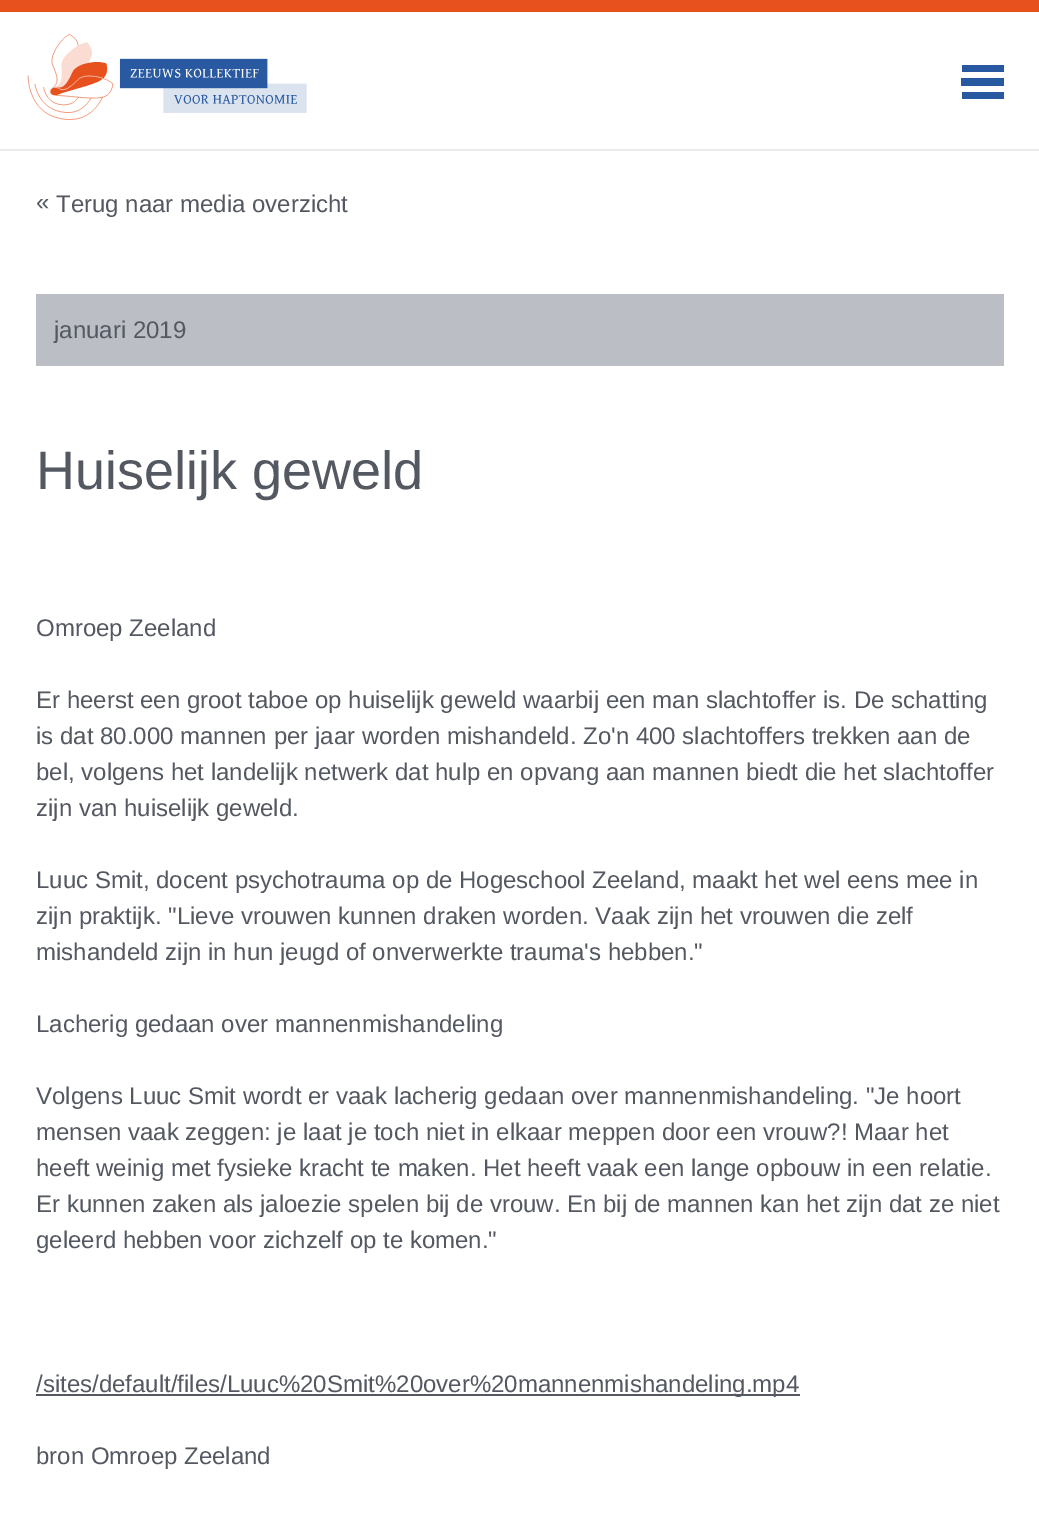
%!PS-Adobe-3.0
%%BoundingBox: 0 0 1039 1537
%%LanguageLevel: 3
%%Pages: 1
%%EndComments
%%BeginProlog
/fn { [ exch dup neg 0 0 3 -1 roll 0 0 ] selectfont } def
/tx { moveto show } def
/bx { rectfill } def
/im { 5 dict begin { /h /w /y /x /name } { exch def } forall
  gsave x y translate w h scale
  w h 8 [w 0 0 h 0 0] name (r) file false 3 colorimage grestore end } def
%%EndProlog
%%BeginSetup
<< /PageSize [1039 1537] >> setpagedevice
%%EndSetup
%%Page: 1 1
0 1537 translate 1 -1 scale
4 setmiterlimit
1 setgray
0 0 1039 1537 bx
0.902 0.318 0.118 setrgbcolor
0 0 1039 12 bx
0.922 setgray
0 149 1039 2 bx
(image0.raw) 27 33 280 87 im
0.149 0.349 0.627 setrgbcolor
961 78 43 8 bx
0.157 0.349 0.627 setrgbcolor
962 65 42 7 bx
962 92 42 7 bx
/LiberationSans-Regular 24 fn
0.325 0.345 0.38 setrgbcolor
(«) 36 210 tx
(Terug naar media overzicht) 56 212 tx
0.733 0.749 0.773 setrgbcolor
36 294 968 72 bx
0.325 0.345 0.38 setrgbcolor
(januari 2019) 54 338 tx
/LiberationSans-Regular 54 fn
(Huiselijk geweld) 36 489 tx
/LiberationSans-Regular 24 fn
(Omroep Zeeland) 36 636 tx
(Er heerst een groot taboe op huiselijk geweld waarbij een man slachtoffer is. De schatting) 36 708 tx
(is dat 80.000 mannen per jaar worden mishandeld. Zo'n 400 slachtoffers trekken aan de) 36 744 tx
(bel, volgens het landelijk netwerk dat hulp en opvang aan mannen biedt die het slachtoffer) 36 780 tx
(zijn van huiselijk geweld.) 36 816 tx
(Luuc Smit, docent psychotrauma op de Hogeschool Zeeland, maakt het wel eens mee in) 36 888 tx
(zijn praktijk. "Lieve vrouwen kunnen draken worden. Vaak zijn het vrouwen die zelf) 36 924 tx
(mishandeld zijn in hun jeugd of onverwerkte trauma's hebben.") 36 960 tx
(Lacherig gedaan over mannenmishandeling) 36 1032 tx
(Volgens Luuc Smit wordt er vaak lacherig gedaan over mannenmishandeling. "Je hoort) 36 1104 tx
(mensen vaak zeggen: je laat je toch niet in elkaar meppen door een vrouw?! Maar het) 36 1140 tx
(heeft weinig met fysieke kracht te maken. Het heeft vaak een lange opbouw in een relatie.) 36 1176 tx
(Er kunnen zaken als jaloezie spelen bij de vrouw. En bij de mannen kan het zijn dat ze niet) 36 1212 tx
(geleerd hebben voor zichzelf op te komen.") 36 1248 tx
36 1394 764 2 bx
(/sites/default/files/Luuc%20Smit%20over%20mannenmishandeling.mp4) 36 1392 tx
(bron Omroep Zeeland) 36 1464 tx
showpage
%%EOF
